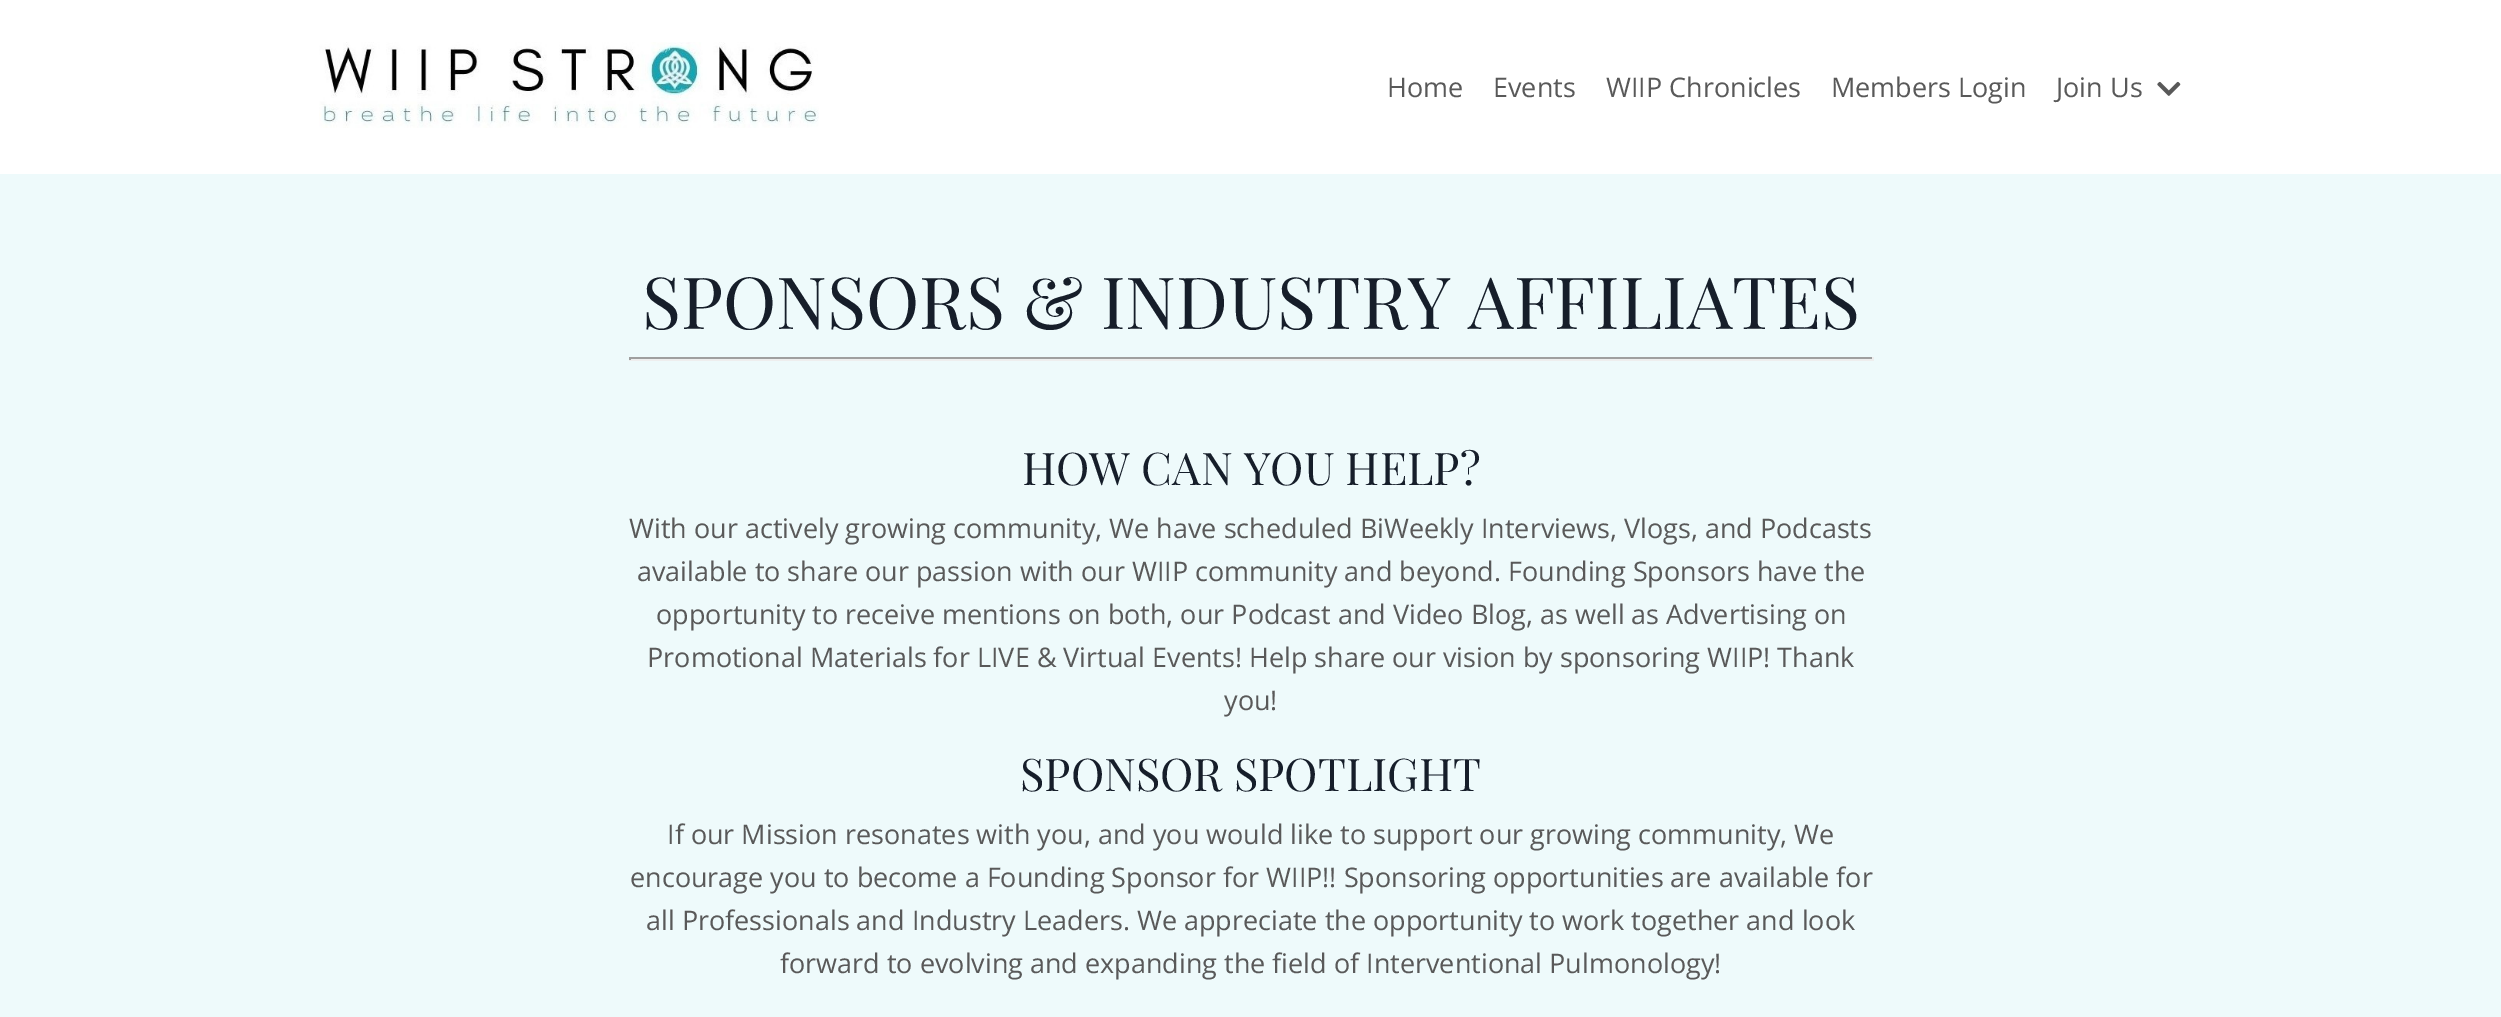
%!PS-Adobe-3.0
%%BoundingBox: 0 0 2501 1017
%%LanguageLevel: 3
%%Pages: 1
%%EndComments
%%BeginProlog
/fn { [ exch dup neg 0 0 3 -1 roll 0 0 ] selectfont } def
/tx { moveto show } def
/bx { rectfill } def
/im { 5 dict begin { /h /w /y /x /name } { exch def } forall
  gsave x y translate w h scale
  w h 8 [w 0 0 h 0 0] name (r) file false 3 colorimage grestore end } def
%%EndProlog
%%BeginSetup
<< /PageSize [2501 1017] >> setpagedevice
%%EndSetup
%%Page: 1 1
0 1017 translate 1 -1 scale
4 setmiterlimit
1 setgray
0 0 2501 1017 bx
(image0.raw) 319 42 500 86 im
/OpenSans-Regular 27 fn
0.349 setgray
(Home) 1387 97 tx
(Events) 1493 97 tx
(WIIP Chronicles) 1606 97 tx
(Members Login) 1831 97 tx
(Join Us) 2056 97 tx
(image1.raw) 2157 81 24 15 im
0.933 0.98 0.984 setrgbcolor
0 174 2501 843 bx
/PlayfairDisplay-Regular 72 fn
0.086 0.118 0.165 setrgbcolor
(SPONSORS & INDUSTRY AFFILIATES) 642 329 tx
0.624 setgray
629 357 1245 2 bx
0.933 setgray
1872 357 2 3 bx
629 359 1245 2 bx
0.624 setgray
629 357 2 3 bx
/PlayfairDisplay-Regular 45 fn
0.086 0.118 0.165 setrgbcolor
(HOW CAN YOU HELP?) 1022 485 tx
/OpenSans-Regular 27 fn
0.349 setgray
(With our actively growing community, We have scheduled BiWeekly Interviews, Vlogs, and Podcasts) 629 538 tx
(available to share our passion with our WIIP community and beyond. Founding Sponsors have the) 637 581 tx
(opportunity to receive mentions on both, our Podcast and Video Blog, as well as Advertising on) 656 624 tx
(Promotional Materials for LIVE & Virtual Events! Help share our vision by sponsoring WIIP! Thank) 647 667 tx
(you!) 1224 710 tx
/PlayfairDisplay-Regular 45 fn
0.086 0.118 0.165 setrgbcolor
(SPONSOR SPOTLIGHT) 1020 791 tx
/OpenSans-Regular 27 fn
0.349 setgray
(If our Mission resonates with you, and you would like to support our growing community, We) 667 844 tx
(encourage you to become a Founding Sponsor for WIIP!! Sponsoring opportunities are available for) 630 887 tx
(all Professionals and Industry Leaders. We appreciate the opportunity to work together and look) 646 930 tx
(forward to evolving and expanding the field of Interventional Pulmonology!) 780 973 tx
showpage
%%EOF
